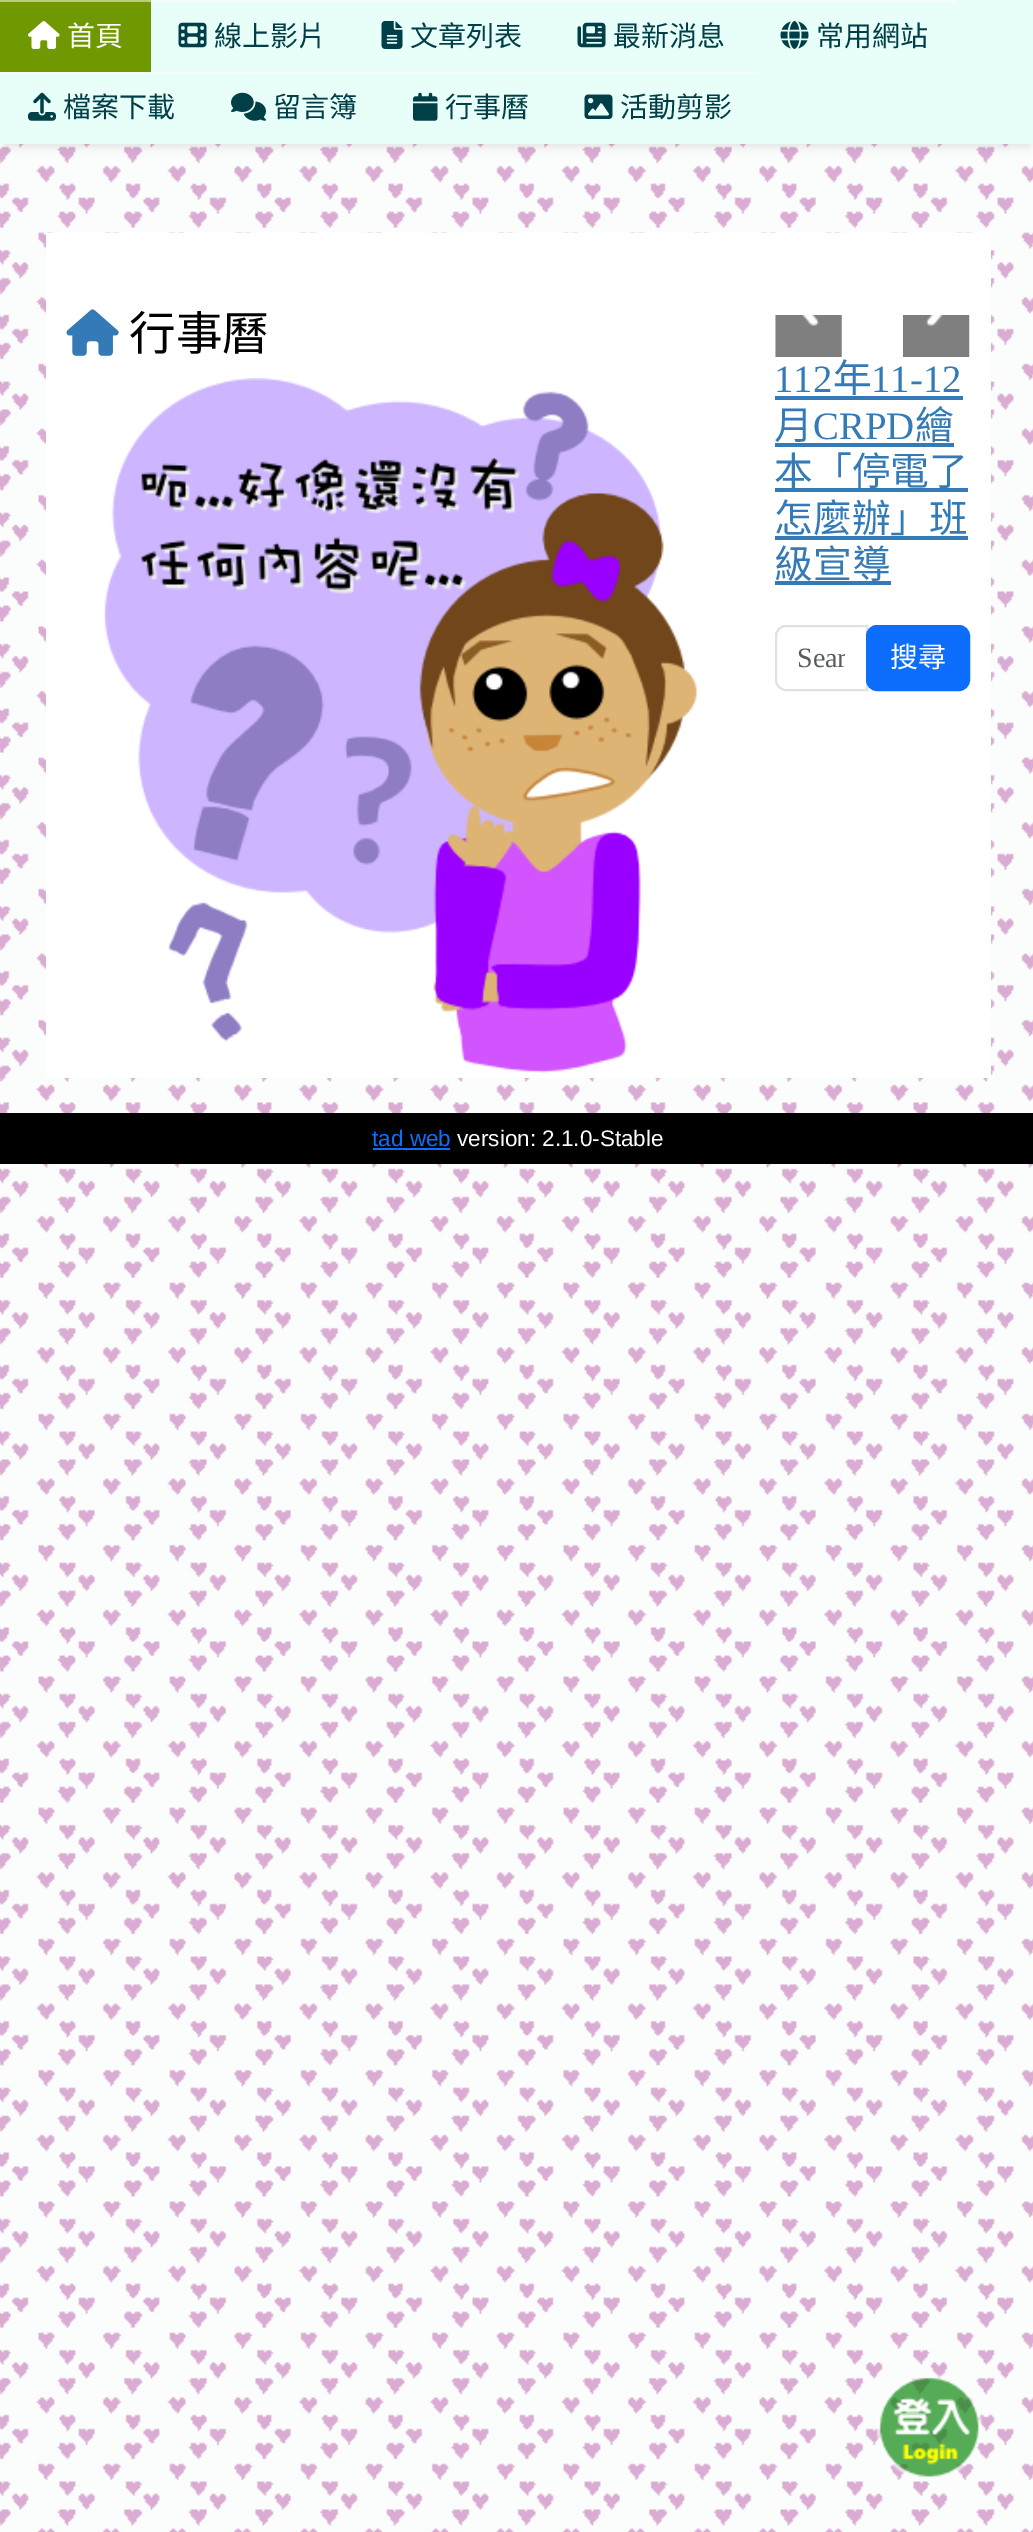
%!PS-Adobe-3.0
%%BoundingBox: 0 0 1033 2532
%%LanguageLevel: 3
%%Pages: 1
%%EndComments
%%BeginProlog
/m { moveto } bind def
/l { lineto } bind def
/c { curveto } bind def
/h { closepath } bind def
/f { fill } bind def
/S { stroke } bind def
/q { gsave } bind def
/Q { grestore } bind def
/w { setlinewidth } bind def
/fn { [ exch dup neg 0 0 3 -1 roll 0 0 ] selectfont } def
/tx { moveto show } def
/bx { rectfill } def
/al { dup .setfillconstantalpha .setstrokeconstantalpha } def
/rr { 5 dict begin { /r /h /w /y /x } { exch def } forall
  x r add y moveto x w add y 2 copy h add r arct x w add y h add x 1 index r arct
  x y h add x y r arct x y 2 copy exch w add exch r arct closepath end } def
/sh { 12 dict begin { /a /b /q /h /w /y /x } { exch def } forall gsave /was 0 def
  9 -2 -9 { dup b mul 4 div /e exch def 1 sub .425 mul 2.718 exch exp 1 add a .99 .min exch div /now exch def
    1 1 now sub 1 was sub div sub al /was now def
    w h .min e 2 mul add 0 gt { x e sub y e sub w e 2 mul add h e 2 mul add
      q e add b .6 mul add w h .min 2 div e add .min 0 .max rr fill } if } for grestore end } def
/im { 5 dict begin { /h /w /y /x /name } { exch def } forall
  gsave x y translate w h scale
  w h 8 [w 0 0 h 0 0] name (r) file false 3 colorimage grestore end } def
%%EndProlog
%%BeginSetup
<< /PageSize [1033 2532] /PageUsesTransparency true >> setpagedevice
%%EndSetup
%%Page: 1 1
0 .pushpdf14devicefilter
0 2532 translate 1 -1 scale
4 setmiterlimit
1 setgray
0 0 1033 2532 bx
(image0.raw) 0 144 1033 2388 im
0 setgray
5 14 1024 133 0 4.5 0.1 sh
0.91 1 0.976 setrgbcolor
0 0 1033 144 bx
0.439 0.596 0 setrgbcolor
0 2 151 70 bx
0.722 0.8 0.502 setrgbcolor
0 0 151 2 bx
(image1.raw) 28 21 32 28 im
/NotoSansCJKTC-Regular 28 fn
0.988 setgray
(首頁) 67 46 tx
0.957 1 0.988 setrgbcolor
151 0 805 2 bx
(image2.raw) 178 22 29 26 im
0 0.247 0.282 setrgbcolor
(線上影片) 214 46 tx
(image3.raw) 381 21 22 28 im
(文章列表) 410 46 tx
(image4.raw) 577 22 29 26 im
(最新消息) 613 46 tx
(image5.raw) 780 21 29 28 im
(常用網站) 816 46 tx
0.957 1 0.988 setrgbcolor
0 72 760 2 bx
(image6.raw) 28 92 28 29 im
0 0.247 0.282 setrgbcolor
(檔案下載) 63 117 tx
(image7.raw) 231 92 35 29 im
(留言簿) 273 117 tx
(image8.raw) 413 92 25 29 im
(行事曆) 445 117 tx
(image9.raw) 584 94 29 25 im
(活動剪影) 620 117 tx
1 setgray
46 233 945 845 bx
(image10.raw) 66 309 53 47 im
/NotoSansCJKTC-Regular 46.5 fn
0 setgray
(行事曆) 129 350 tx
(image11.raw) 104 378 593 695 im
(image12.raw) 775 315 67 42 im
(image13.raw) 903 315 67 42 im
/LiberationSerif-Regular 38.75 fn
0.2 0.478 0.718 setrgbcolor
(112) 774 392 tx
775 396 188 4 bx
/NotoSansCJKTC-Regular 38.75 fn
(年) 833 392 tx
/LiberationSerif-Regular 38.75 fn
(11-12) 871 392 tx
/NotoSansCJKTC-Regular 38.75 fn
(月) 774 439 tx
/LiberationSerif-Regular 38.75 fn
(CRPD) 813 439 tx
775 443 179 4 bx
/NotoSansCJKTC-Regular 38.75 fn
(繪) 915 439 tx
775 488 193 4 bx
(本「停電了) 774 485 tx
(怎麼辦」班) 774 532 tx
775 536 193 4 bx
775 581 116 4 bx
(級宣導) 774 578 tx
0.871 0.886 0.902 setrgbcolor
2 w
786 626 m 867 626 l 867 690 l 786 690 l 780.5 690 776 685.5 776 680 c 776 636 l 776 630.5 780.5 626 786 626 c h S
q
798 642 47 32 rectclip
/LiberationSerif-Regular 28 fn
0.349 0.361 0.373 setrgbcolor
(Sear) 797 667 tx
Q
0.051 0.431 0.992 setrgbcolor
867 626 102 64 10 rr q f Q
S
/NotoSansCJKTC-Regular 28 fn
0.988 setgray
(搜尋) 890 667 tx
(image14.raw) 876 2374 106 103 im
0 setgray
0 1113 1033 51 bx
/LiberationSans-Regular 22.5 fn
0.051 0.431 0.992 setrgbcolor
(tad web) 372 1146 tx
373 1148 77 2 bx
0.988 setgray
(version: 2.1.0-Stable) 457 1146 tx
.poppdf14devicefilter showpage
%%EOF
